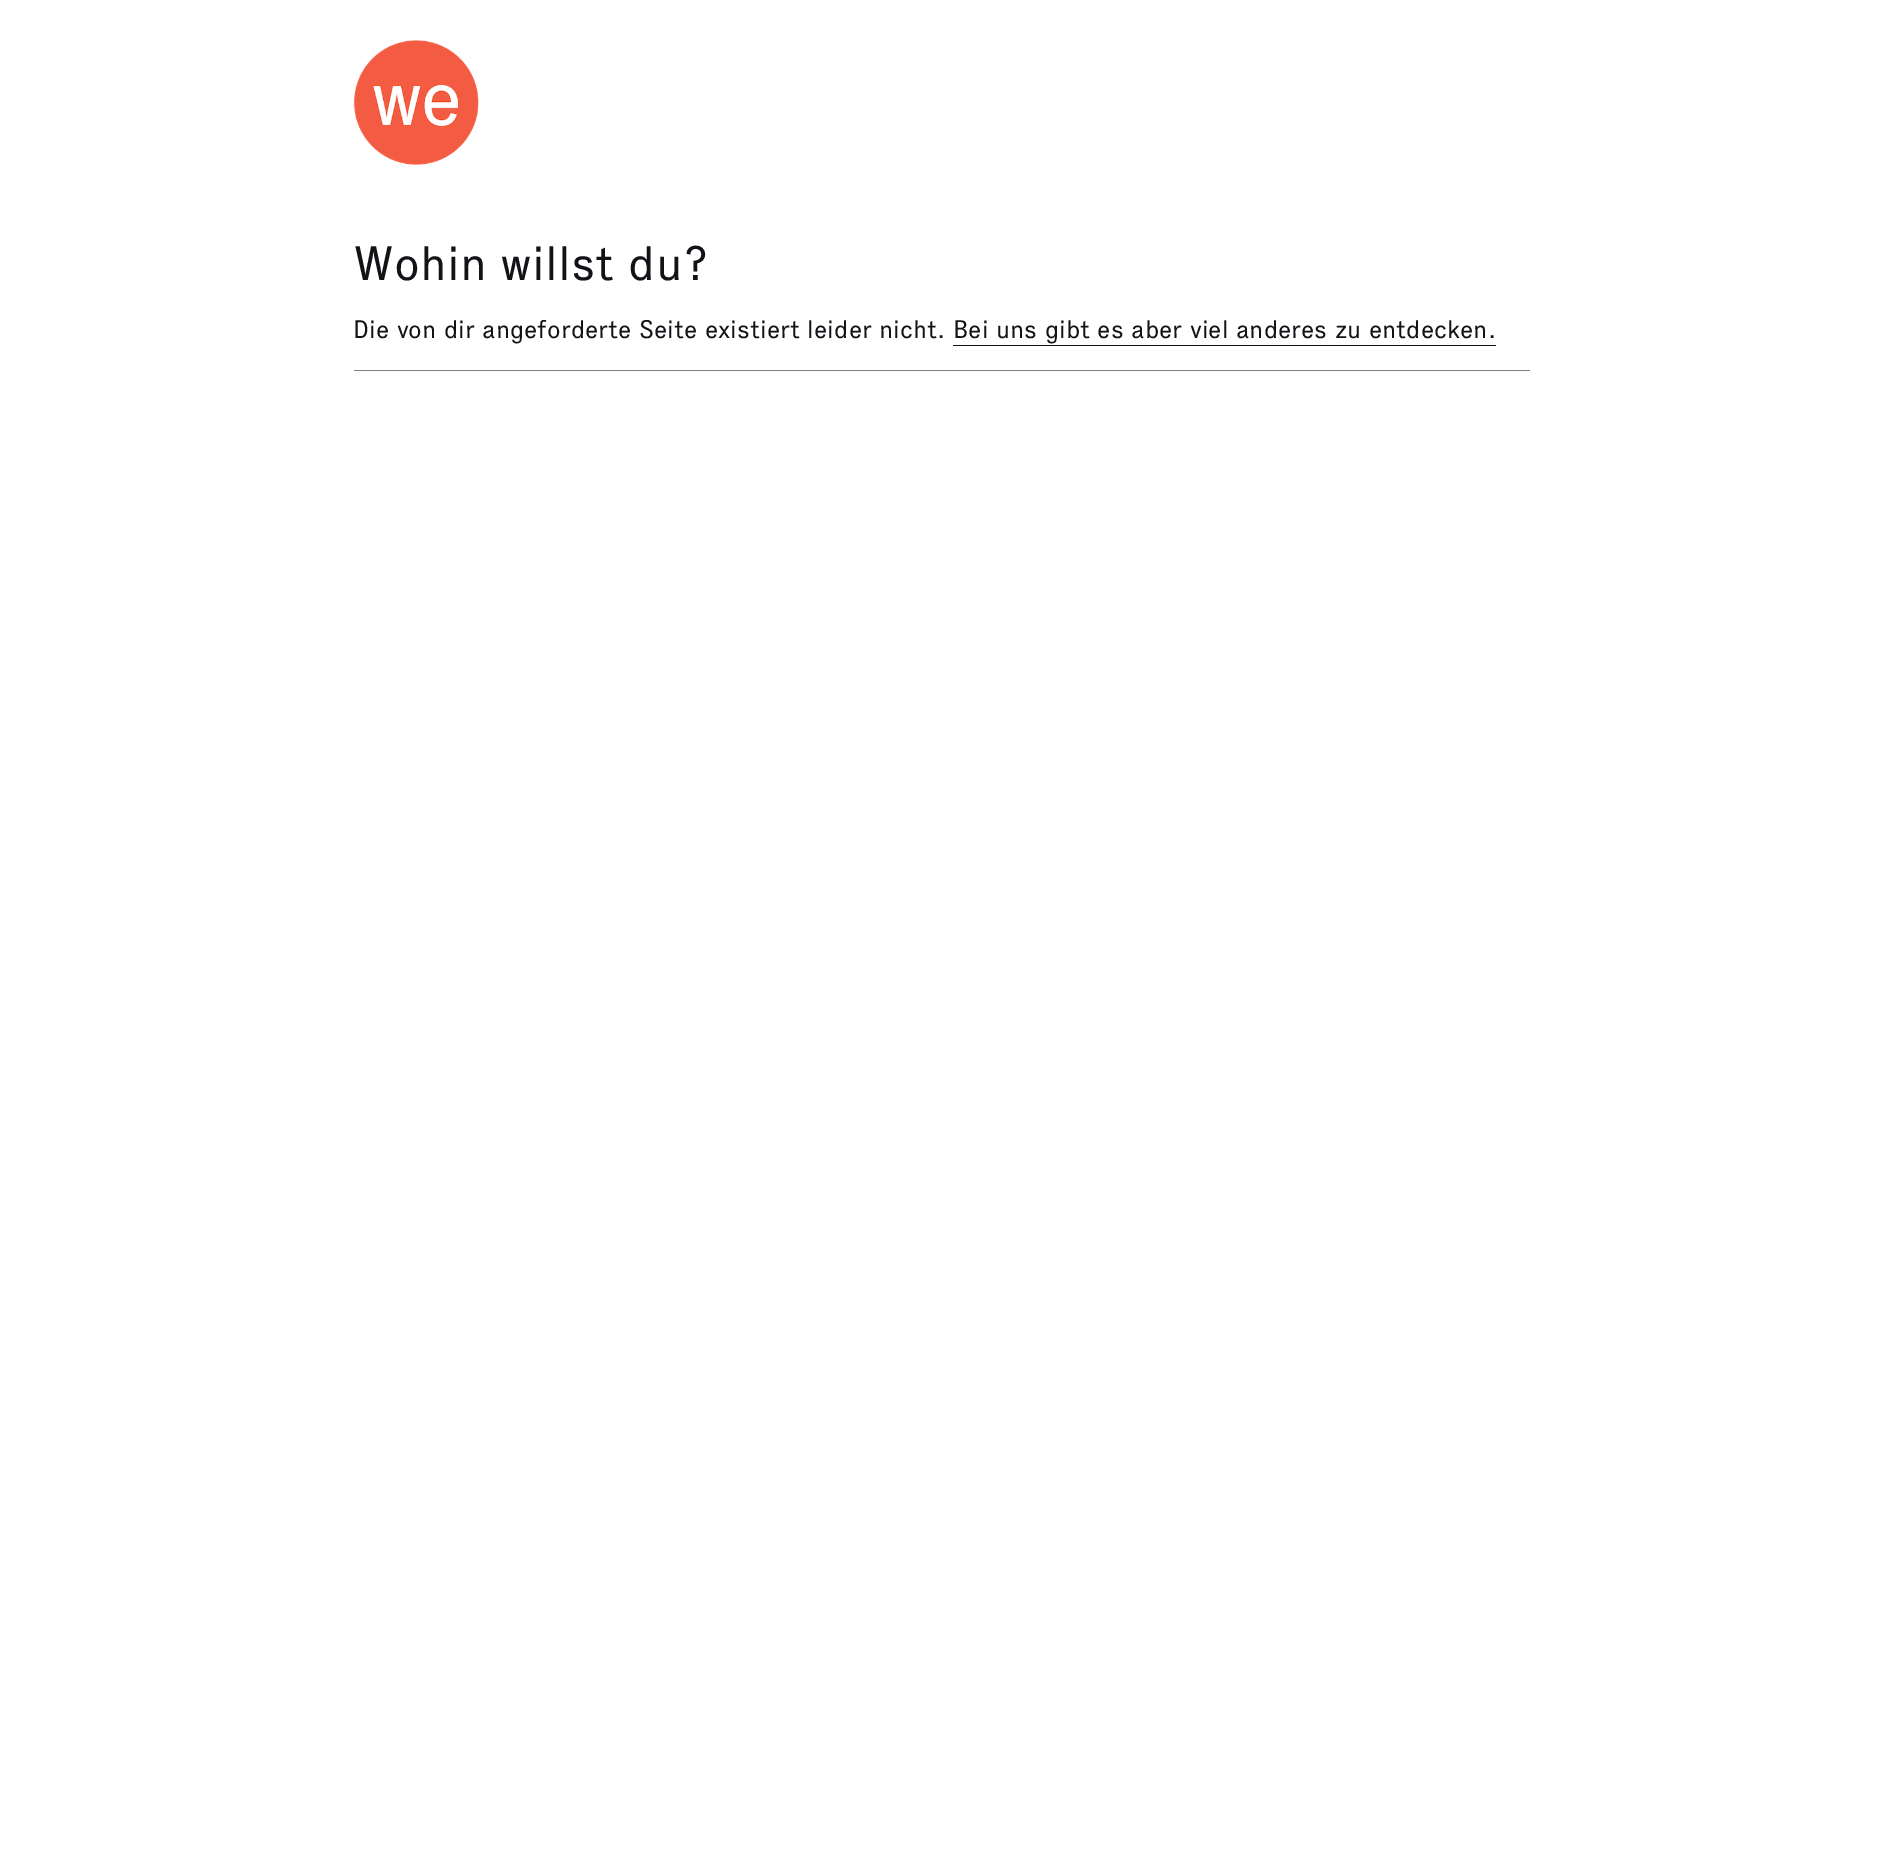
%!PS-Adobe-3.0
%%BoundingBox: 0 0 1882 1876
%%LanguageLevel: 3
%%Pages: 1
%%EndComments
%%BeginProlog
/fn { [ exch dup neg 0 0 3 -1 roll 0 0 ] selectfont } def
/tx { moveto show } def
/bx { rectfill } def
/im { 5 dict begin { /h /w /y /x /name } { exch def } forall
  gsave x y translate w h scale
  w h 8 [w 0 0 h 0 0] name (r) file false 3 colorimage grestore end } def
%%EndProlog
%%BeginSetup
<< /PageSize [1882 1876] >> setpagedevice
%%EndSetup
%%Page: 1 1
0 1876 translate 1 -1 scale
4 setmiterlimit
1 setgray
0 0 1882 1876 bx
(image0.raw) 353 40 126 125 im
/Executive-Regular 47.5 fn
0.071 0.075 0.09 setrgbcolor
(Wohin willst du?) 353 280 tx
/Executive-Regular 25 fn
(Die von dir angeforderte Seite existiert leider nicht. Bei uns gibt es aber viel anderes zu entdecken.) 353 338 tx
953 345 543 1 bx
0.502 setgray
354 370 1176 1 bx
showpage
%%EOF
